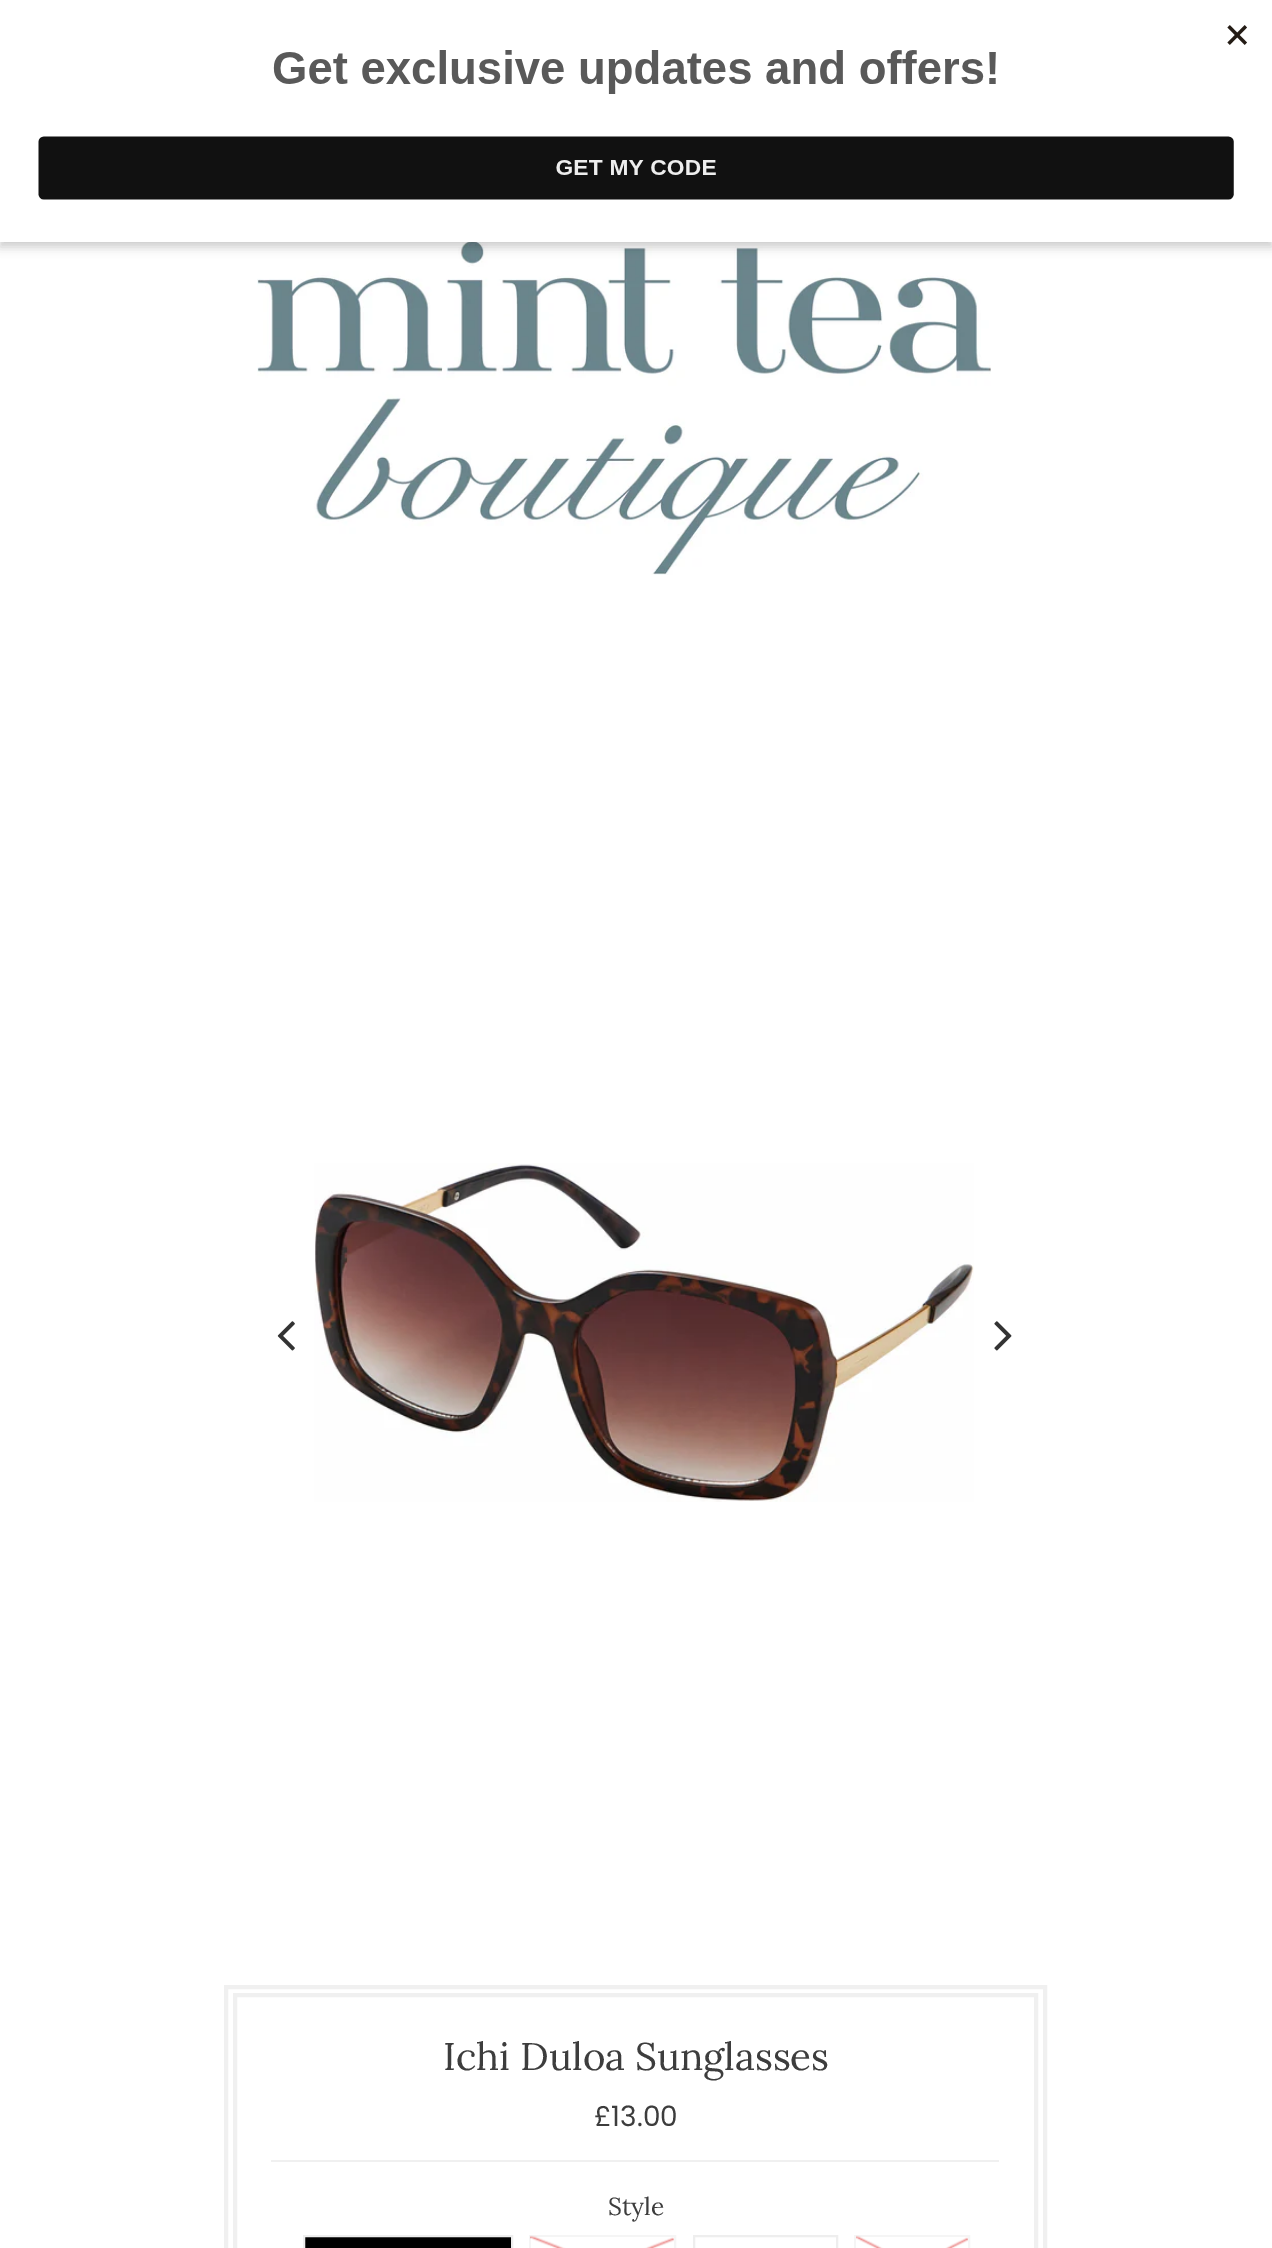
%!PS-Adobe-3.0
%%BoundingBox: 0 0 1272 2248
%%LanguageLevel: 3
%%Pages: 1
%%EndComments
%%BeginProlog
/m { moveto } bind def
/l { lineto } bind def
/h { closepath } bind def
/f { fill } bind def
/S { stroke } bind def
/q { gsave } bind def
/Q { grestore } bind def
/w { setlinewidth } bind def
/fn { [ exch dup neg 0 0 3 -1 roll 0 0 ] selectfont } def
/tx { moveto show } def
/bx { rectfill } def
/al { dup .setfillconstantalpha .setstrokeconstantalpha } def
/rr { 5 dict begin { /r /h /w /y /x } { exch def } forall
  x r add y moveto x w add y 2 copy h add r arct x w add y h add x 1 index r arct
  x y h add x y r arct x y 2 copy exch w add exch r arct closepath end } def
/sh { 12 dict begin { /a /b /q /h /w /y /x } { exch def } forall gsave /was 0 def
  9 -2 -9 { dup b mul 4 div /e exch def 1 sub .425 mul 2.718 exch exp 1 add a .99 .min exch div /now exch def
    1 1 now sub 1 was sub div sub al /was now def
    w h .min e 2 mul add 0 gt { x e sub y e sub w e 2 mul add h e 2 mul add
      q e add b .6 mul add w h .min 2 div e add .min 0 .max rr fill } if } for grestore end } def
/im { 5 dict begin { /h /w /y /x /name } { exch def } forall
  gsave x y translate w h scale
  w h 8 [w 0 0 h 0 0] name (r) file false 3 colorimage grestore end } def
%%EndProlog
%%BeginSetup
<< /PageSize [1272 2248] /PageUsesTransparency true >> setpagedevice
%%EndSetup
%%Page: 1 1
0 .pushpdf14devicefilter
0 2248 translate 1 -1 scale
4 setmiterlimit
1 setgray
0 0 1272 2248 bx
(image1.raw) 257 242 734 333 im
0 setgray
0 5 1272 242 0 5 0.2 sh
1 setgray
0 0 1272 242 bx
(image0.raw) 38 25 1209 175 im
(image2.raw) 314 1163 660 339 im
(image3.raw) 277 1321 18 30 im
(image4.raw) 994 1321 18 30 im
0.941 setgray
4 w
226 1987 819 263 rectstroke
235 1995 801 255 rectstroke
/Lora-Regular 38.5 fn
0.239 setgray
(Ichi Duloa Sunglasses) 443 2070 tx
0.941 setgray
271 2160 728 2 bx
/Poppins-Regular 28 fn
0.239 setgray
(£13.00) 594 2126 tx
/Lora-Regular 24.5 fn
(Style) 608 2215 tx
0 setgray
304 2236 m 512 2236 l 512 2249 l 304 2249 l h q f Q
0.933 setgray
2 w
S
0.961 setgray
530 2236 145 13 rectstroke
(image5.raw) 530 2235 144 13 im
0.933 setgray
694 2236 143 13 rectstroke
0.961 setgray
855 2236 114 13 rectstroke
(image6.raw) 856 2235 112 13 im
.poppdf14devicefilter showpage
%%EOF
